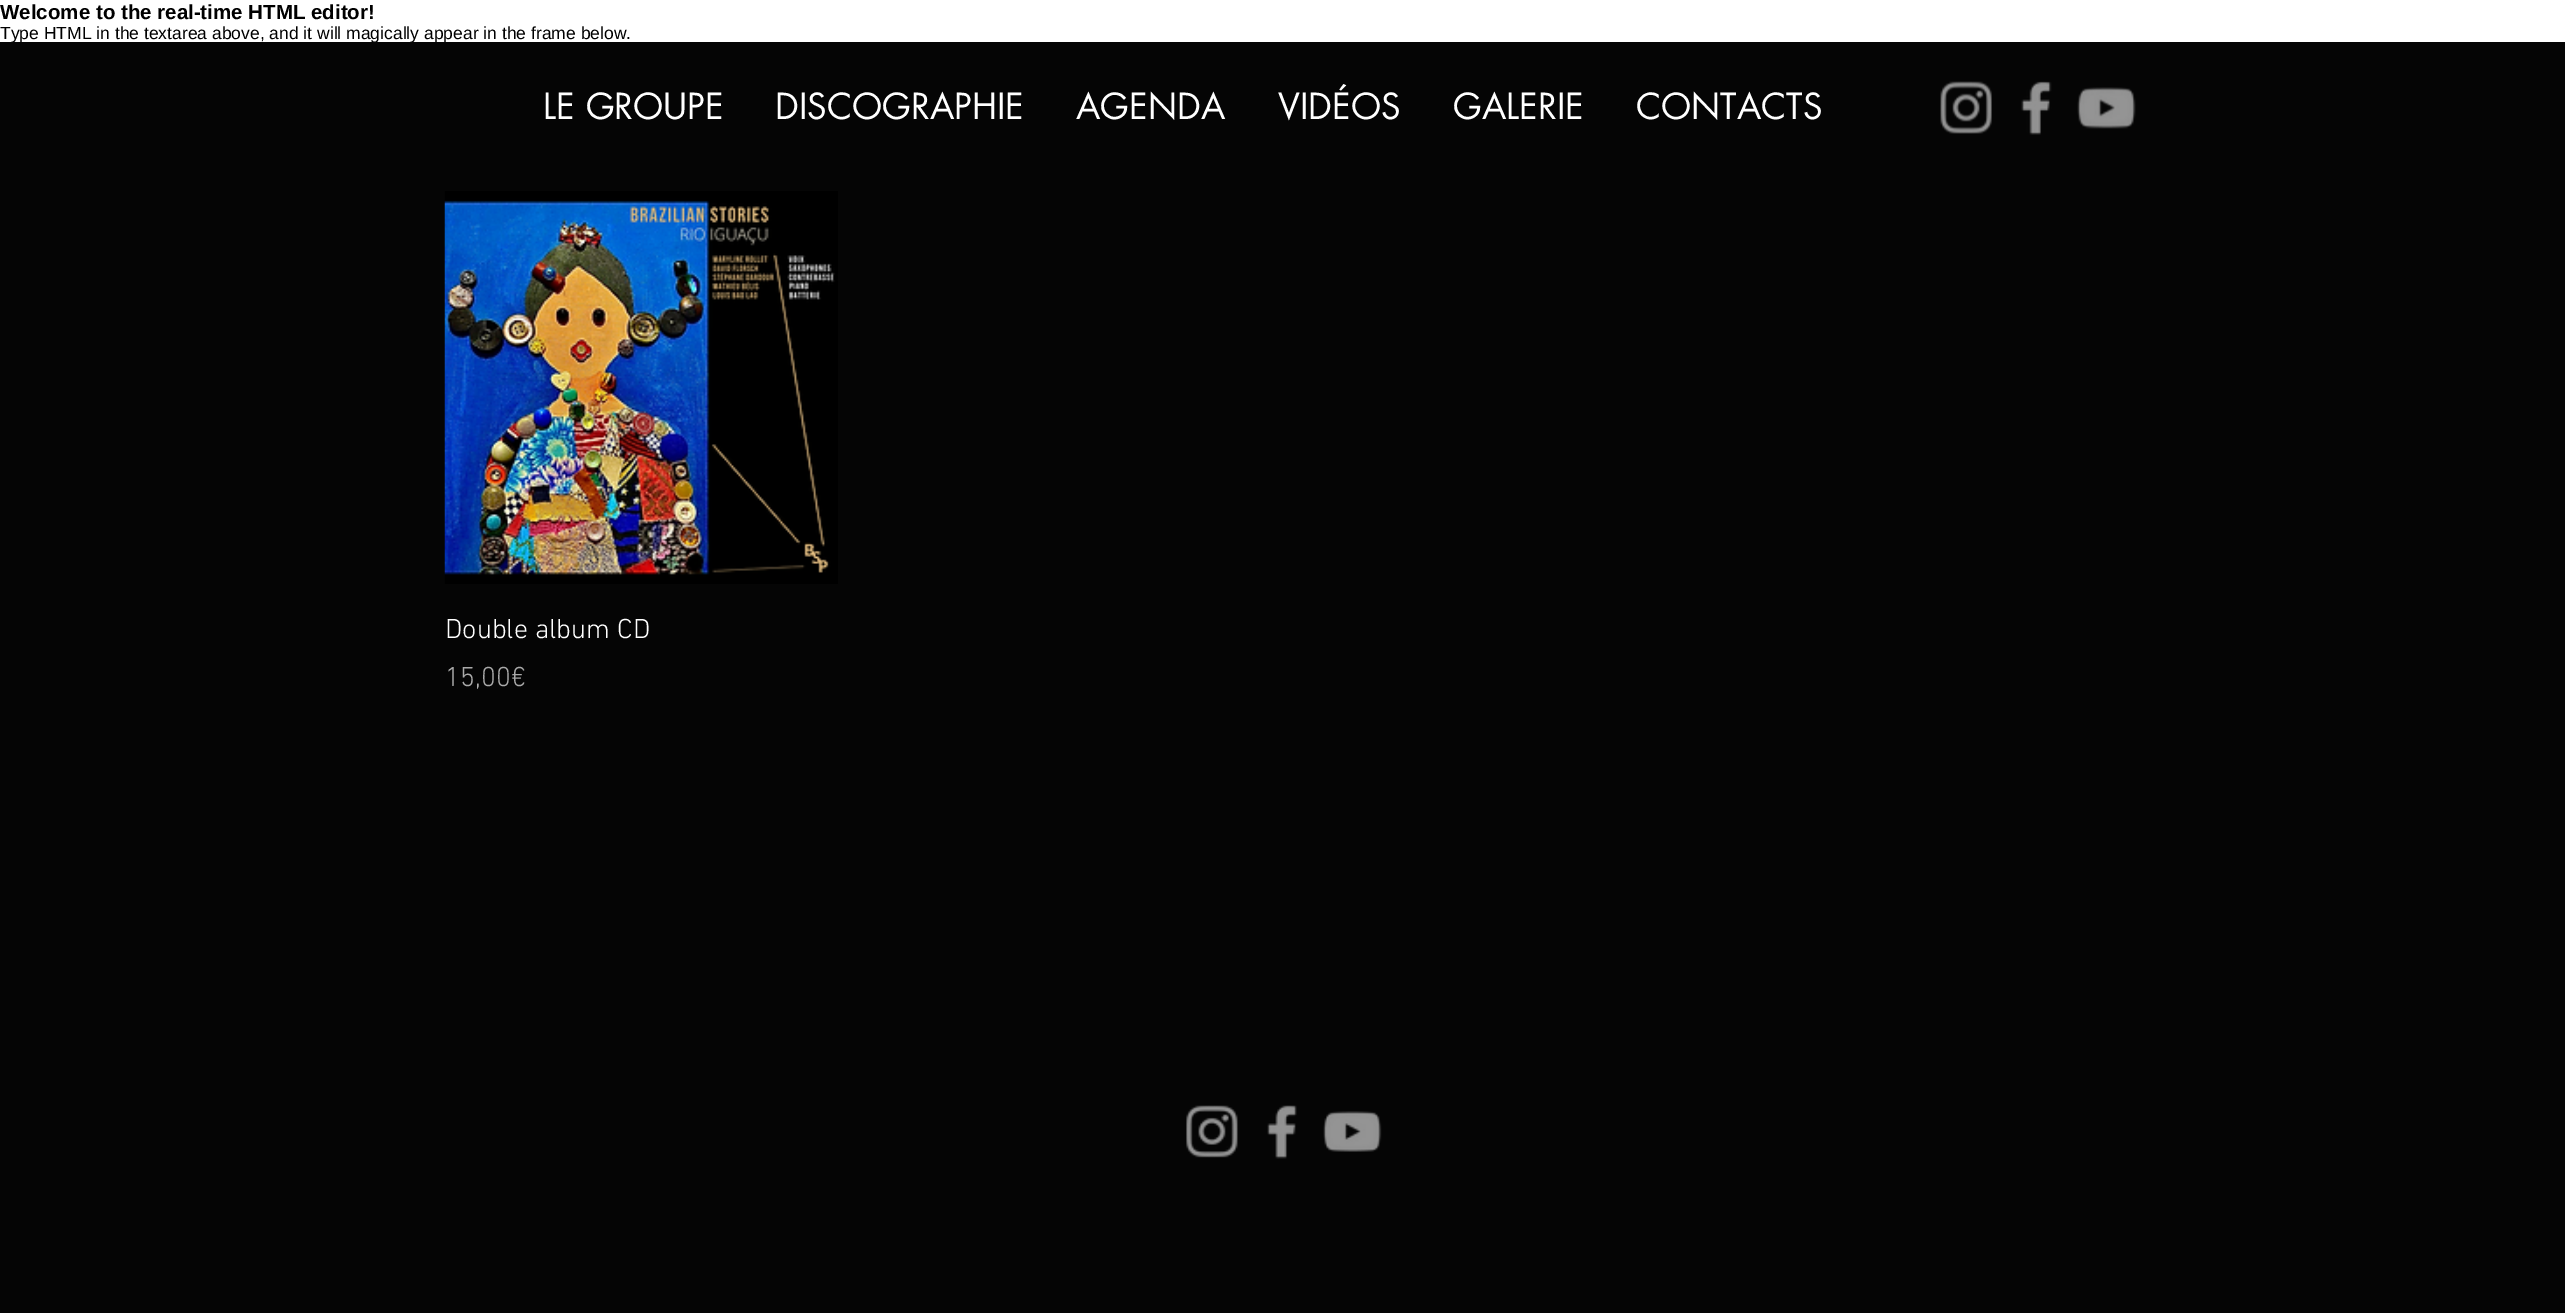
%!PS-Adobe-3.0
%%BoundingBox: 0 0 2565 1313
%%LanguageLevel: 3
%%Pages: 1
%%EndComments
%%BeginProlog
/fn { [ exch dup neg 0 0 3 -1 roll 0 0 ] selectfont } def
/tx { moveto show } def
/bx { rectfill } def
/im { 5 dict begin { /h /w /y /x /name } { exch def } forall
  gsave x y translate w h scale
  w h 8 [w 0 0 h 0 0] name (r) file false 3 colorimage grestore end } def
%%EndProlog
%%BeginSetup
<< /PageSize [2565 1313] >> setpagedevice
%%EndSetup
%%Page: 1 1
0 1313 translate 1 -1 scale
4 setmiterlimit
1 setgray
0 0 2565 1313 bx
/LiberationSans-Bold 20.5 fn
0 setgray
(Welcome to the real-time HTML editor!) 0 19 tx
/LiberationSans-Regular 17.5 fn
(Type HTML in the textarea above, and it will magically appear in the frame below.) 0 39 tx
0.02 setgray
0 42 2565 1271 bx
/futura-Regular 35 fn
1 setgray
(LE GROUPE) 543 119 tx
(DISCOGRAPHIE) 775 119 tx
(AGENDA) 1076 119 tx
(VIDÉOS) 1278 119 tx
(GALERIE) 1453 119 tx
(CONTACTS) 1636 119 tx
(image0.raw) 1940 81 52 53 im
(image1.raw) 2021 81 31 54 im
(image2.raw) 2077 87 59 42 im
(image3.raw) 444 191 394 393 im
/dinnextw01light-Light 28 fn
(Double album CD) 445 638 tx
0.667 setgray
(15,00€) 445 686 tx
(image4.raw) 1186 1105 52 53 im
(image5.raw) 1267 1105 30 54 im
(image6.raw) 1323 1111 59 41 im
showpage
%%EOF
